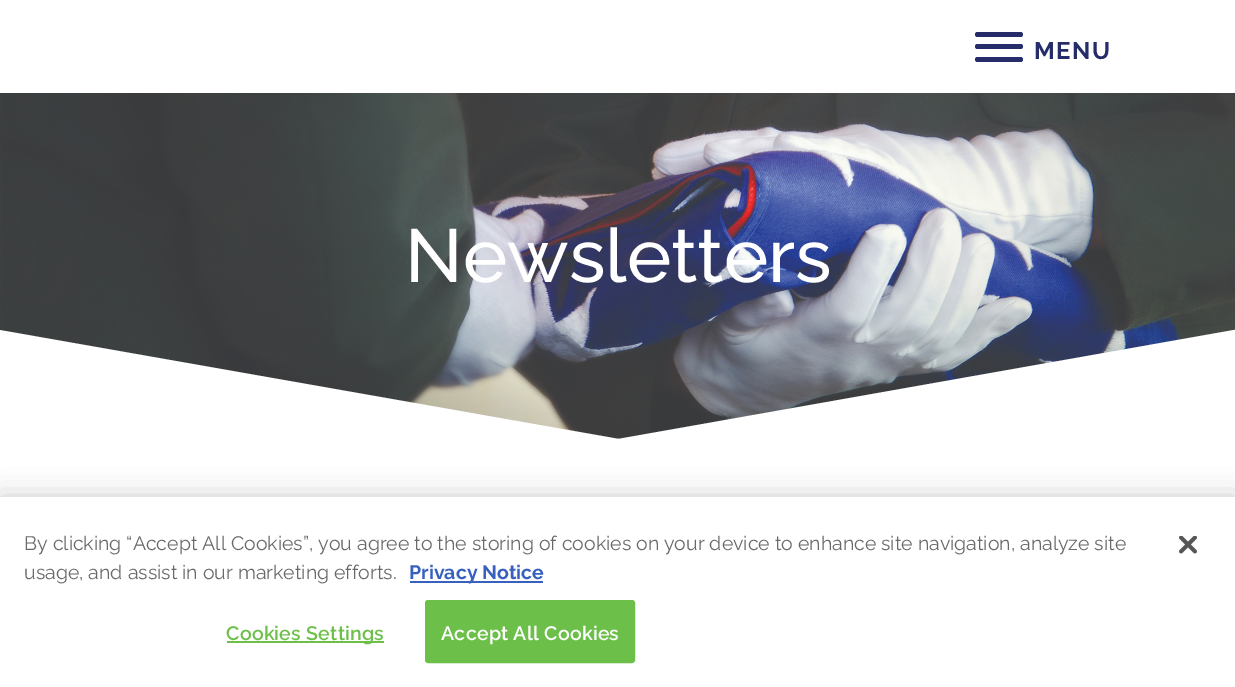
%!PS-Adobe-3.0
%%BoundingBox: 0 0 1235 687
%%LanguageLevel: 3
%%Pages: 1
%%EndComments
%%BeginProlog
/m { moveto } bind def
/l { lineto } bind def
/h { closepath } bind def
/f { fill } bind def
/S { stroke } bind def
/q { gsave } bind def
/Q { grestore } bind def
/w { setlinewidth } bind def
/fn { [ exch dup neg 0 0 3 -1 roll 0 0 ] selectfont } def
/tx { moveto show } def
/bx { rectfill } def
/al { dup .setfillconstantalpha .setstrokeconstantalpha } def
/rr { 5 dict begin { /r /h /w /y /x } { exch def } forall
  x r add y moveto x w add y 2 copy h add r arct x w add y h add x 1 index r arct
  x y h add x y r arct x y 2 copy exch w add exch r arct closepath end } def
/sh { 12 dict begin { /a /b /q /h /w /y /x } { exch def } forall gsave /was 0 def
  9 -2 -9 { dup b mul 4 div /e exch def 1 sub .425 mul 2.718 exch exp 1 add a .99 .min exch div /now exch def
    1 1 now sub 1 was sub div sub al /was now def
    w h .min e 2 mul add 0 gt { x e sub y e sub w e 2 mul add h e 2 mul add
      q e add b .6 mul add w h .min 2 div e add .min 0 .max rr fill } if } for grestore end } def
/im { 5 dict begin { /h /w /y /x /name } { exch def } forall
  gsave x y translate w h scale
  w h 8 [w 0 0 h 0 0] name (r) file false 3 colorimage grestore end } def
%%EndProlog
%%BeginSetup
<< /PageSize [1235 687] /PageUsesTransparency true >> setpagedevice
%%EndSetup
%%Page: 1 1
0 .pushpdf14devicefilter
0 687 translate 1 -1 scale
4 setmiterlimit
1 setgray
0 0 1235 687 bx
0.149 0.173 0.412 setrgbcolor
975 32 48 5 2.5 rr f
975 44 48 5 2.5 rr f
/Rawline-Bold 24 fn
1034 59 m 1.5 0 (MENU) ashow
975 57 48 5 2.5 rr f
(image0.raw) 0 93 1235 346 im
/Raleway-Medium 75 fn
1 setgray
(Newsletters) 405 282 tx
-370 265 m 619 439 l 619 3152 l -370 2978 l h f
618 439 m 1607 264 l 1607 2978 l 618 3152 l h f
0 setgray
0 497 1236 190 0 13.5 0.2 sh
1 setgray
0 497 1235 190 bx
/Rawline-Regular 19.5 fn
0.412 setgray
(By clicking “Accept All Cookies”, you agree to the storing of cookies on your device to enhance site navigation, analyze site) 24 550 tx
(usage, and assist in our marketing efforts.) 24 579 tx
0.22 0.376 0.745 setrgbcolor
410 581 133 2 bx
/Rawline-Bold 19.5 fn
(Privacy Notice) 409 579 tx
0.424 0.753 0.29 setrgbcolor
227 641 157 2 bx
/Rawline-SemiBold 19.5 fn
226 640 m 0.25 0 (Cookies Settings) ashow
426 601 208 61 2 rr q f Q
2 w
S
1 setgray
441 640 m 0.25 0 (Accept All Cookies) ashow
(image1.raw) 1179 536 18 18 im
.poppdf14devicefilter showpage
%%EOF
